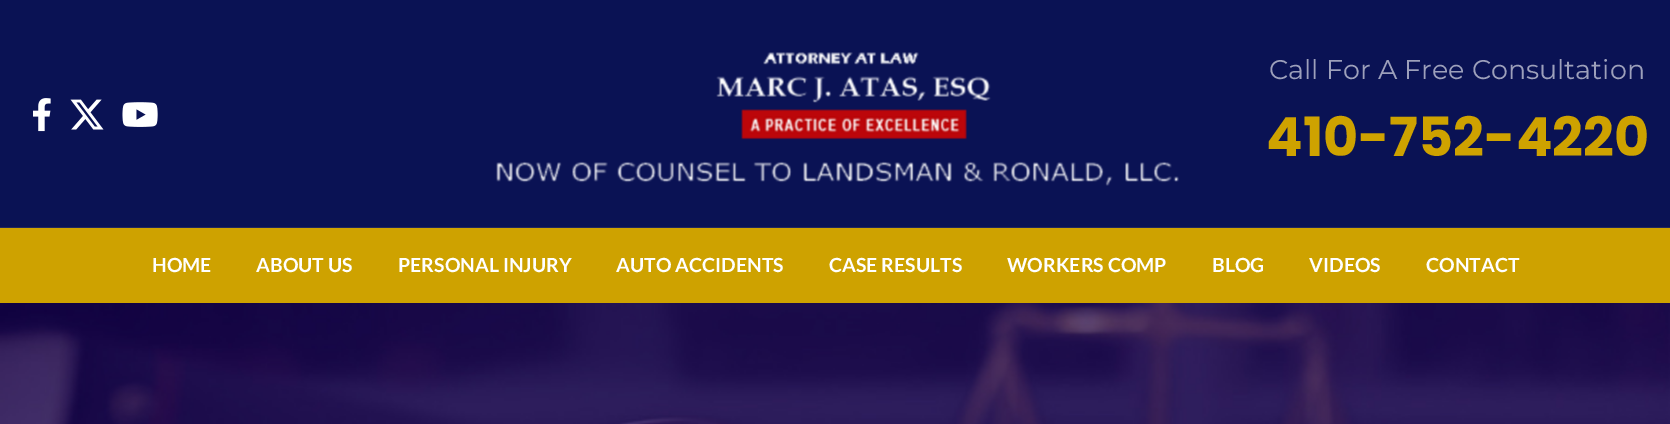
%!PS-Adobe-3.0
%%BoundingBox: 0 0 1670 424
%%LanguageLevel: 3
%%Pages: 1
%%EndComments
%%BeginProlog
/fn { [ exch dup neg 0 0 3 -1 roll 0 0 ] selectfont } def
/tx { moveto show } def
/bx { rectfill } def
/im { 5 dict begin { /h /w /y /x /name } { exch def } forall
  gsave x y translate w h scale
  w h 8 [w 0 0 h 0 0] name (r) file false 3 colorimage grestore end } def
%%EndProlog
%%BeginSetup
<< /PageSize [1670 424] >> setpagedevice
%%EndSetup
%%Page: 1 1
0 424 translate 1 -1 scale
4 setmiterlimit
1 setgray
0 0 1670 424 bx
0.039 0.071 0.329 setrgbcolor
0 0 1670 227 bx
0.133 0.157 0.365 setrgbcolor
0 227 1670 1 bx
(image0.raw) 33 98 18 34 im
(image1.raw) 70 99 34 31 im
(image2.raw) 122 102 36 25 im
(image3.raw) 496 52 683 134 im
/Montserrat-Regular 27 fn
0.616 0.627 0.733 setrgbcolor
(Call For A Free Consultation) 1269 79 tx
/Poppins-Bold 54 fn
0.808 0.635 0 setrgbcolor
(410-752-4220) 1266 156 tx
0 228 1670 75 bx
/Lato-Bold 19.5 fn
1 setgray
(HOME) 152 272 tx
(ABOUT US) 256 272 tx
(PERSONAL INJURY) 398 272 tx
(AUTO ACCIDENTS) 616 272 tx
(CASE RESULTS) 829 272 tx
(WORKERS COMP) 1007 272 tx
(BLOG) 1212 272 tx
(VIDEOS) 1309 272 tx
(CONTACT) 1426 272 tx
(image4.raw) 0 303 1670 121 im
showpage
%%EOF
